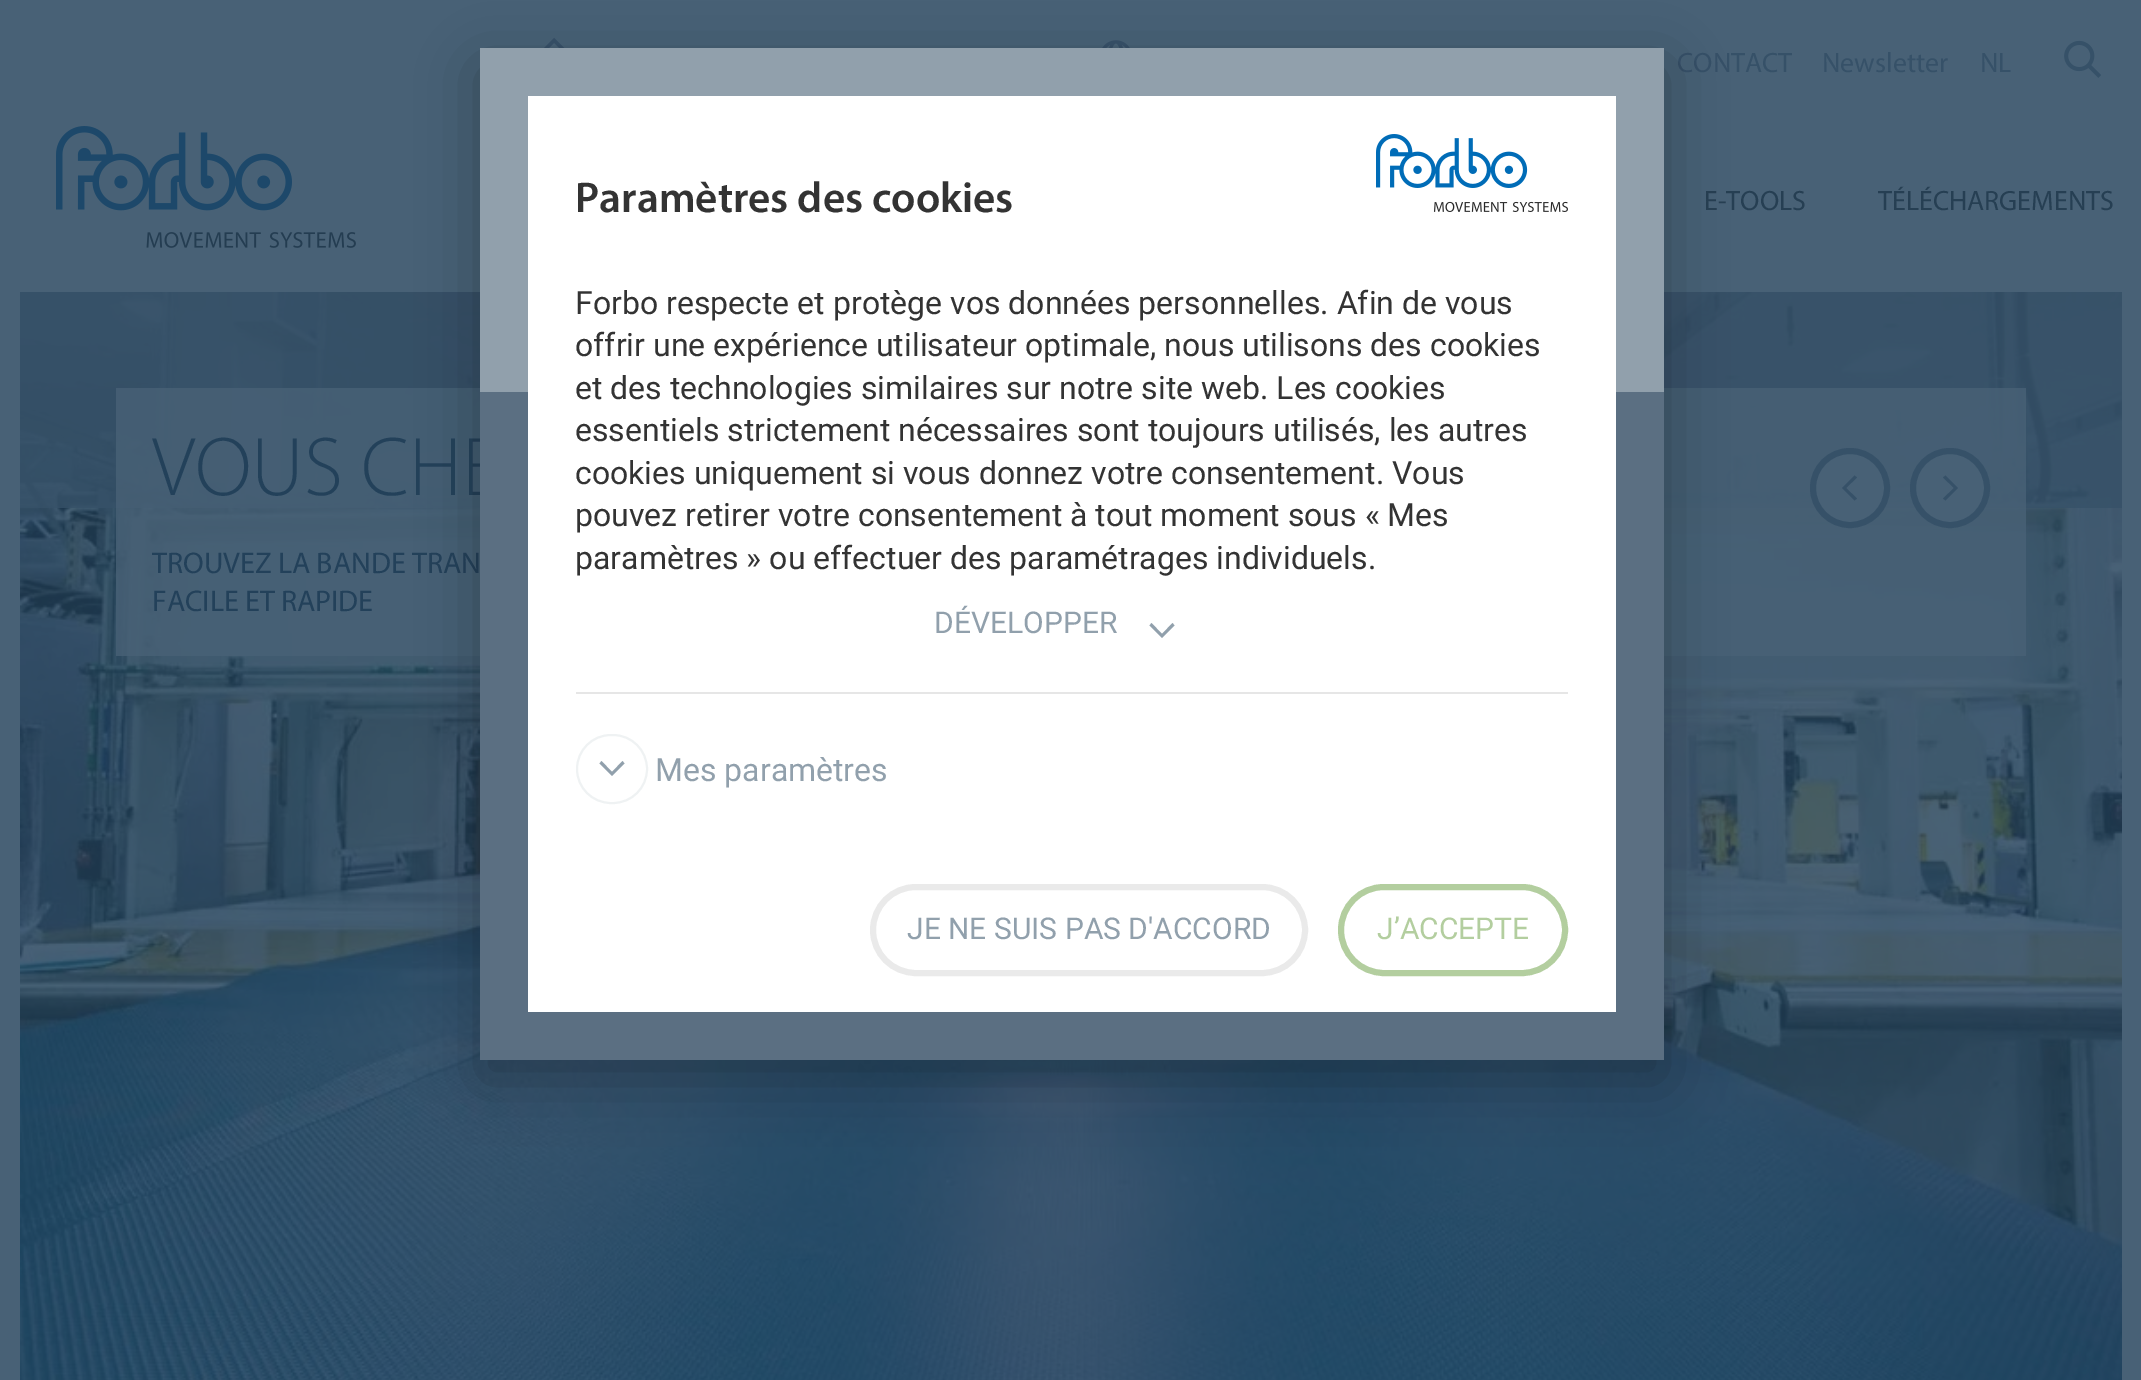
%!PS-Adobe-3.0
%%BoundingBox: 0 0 2141 1380
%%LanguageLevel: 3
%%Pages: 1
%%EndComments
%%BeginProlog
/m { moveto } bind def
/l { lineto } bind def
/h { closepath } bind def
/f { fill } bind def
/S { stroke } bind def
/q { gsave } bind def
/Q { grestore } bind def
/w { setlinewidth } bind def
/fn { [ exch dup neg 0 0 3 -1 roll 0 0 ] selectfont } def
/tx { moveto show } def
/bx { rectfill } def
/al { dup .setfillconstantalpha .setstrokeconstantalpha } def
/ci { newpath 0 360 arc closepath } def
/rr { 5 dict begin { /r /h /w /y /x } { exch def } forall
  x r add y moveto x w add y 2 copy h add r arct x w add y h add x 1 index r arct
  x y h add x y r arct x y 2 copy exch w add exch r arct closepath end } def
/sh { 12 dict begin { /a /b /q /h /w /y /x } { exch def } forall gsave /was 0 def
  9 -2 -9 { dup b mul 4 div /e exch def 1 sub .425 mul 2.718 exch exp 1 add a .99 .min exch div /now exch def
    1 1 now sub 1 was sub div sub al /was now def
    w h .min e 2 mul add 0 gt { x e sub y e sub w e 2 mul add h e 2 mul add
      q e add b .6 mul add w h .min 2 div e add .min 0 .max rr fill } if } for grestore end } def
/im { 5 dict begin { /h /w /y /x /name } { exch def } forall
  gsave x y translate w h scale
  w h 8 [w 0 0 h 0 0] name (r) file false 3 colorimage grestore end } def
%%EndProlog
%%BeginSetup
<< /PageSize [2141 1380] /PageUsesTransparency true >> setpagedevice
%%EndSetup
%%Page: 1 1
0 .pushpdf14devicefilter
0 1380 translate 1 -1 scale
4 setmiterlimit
0.282 0.38 0.463 setrgbcolor
0 0 2141 1380 bx
(image0.raw) 544 37 21 11 im
(image1.raw) 1102 40 28 8 im
/Myriad-Regular 28 fn
0.212 0.318 0.408 setrgbcolor
(CONTACT) 1677 72 tx
(Newsletter) 1822 72 tx
(NL) 1980 72 tx
(image2.raw) 2064 40 38 38 im
(image3.raw) 56 126 300 122 im
0.149 0.247 0.325 setrgbcolor
(E-TOOLS) 1704 210 tx
(TÉLÉCHARGEMENTS) 1878 210 tx
(image4.raw) 20 292 2102 1088 im
0.8 al
0.212 0.318 0.408 setrgbcolor
20 292 2102 216 bx
0.282 0.38 0.463 setrgbcolor
116 388 1910 120 bx
/Myriad-Light 84 fn
1 al
0.137 0.255 0.353 setrgbcolor
(VOUS CHE) 152 495 tx
0.8 al
0.282 0.38 0.463 setrgbcolor
116 508 1910 148 bx
/Myriad-Regular 30 fn
1 al
0.137 0.255 0.353 setrgbcolor
(TROUVEZ LA BANDE TRAN) 152 573 tx
(FACILE ET RAPIDE) 152 611 tx
0.282 0.38 0.463 setrgbcolor
1850 488 37 ci q f Q
0.212 0.318 0.408 setrgbcolor
6 w
S
1842 488 m 1854.5 475.5 l 1857 477.5 l 1846 488 l 1857 498.5 l 1854.5 500.5 l h f
0.282 0.38 0.463 setrgbcolor
1950 488 37 ci q f Q
0.212 0.318 0.408 setrgbcolor
S
1958 488 m 1945.5 500.5 l 1943 498.5 l 1954 488 l 1943 477.5 l 1945.5 475.5 l h f
0.008 0.008 0.012 setrgbcolor
480 68 1184 1012 0 30 0.28 sh
0.357 0.435 0.51 setrgbcolor
480 392 1184 668 bx
0.569 0.627 0.675 setrgbcolor
480 48 1184 344 bx
1 setgray
528 96 1088 916 bx
(image5.raw) 1376 134 192 78 im
/Myriad-SemiBold 43.25 fn
0.2 setgray
(Paramètres des cookies) 575 212 tx
/Roboto-Regular 32 fn
(Forbo respecte et protège vos données personnelles. Afin de vous) 575 314 tx
(offrir une expérience utilisateur optimale, nous utilisons des cookies) 575 356 tx
(et des technologies similaires sur notre site web. Les cookies) 575 399 tx
(essentiels strictement nécessaires sont toujours utilisés, les autres) 575 441 tx
(cookies uniquement si vous donnez votre consentement. Vous) 575 484 tx
(pouvez retirer votre consentement à tout moment sous « Mes) 575 526 tx
(paramètres » ou effectuer des paramétrages individuels.) 575 569 tx
0.902 setgray
576 692 992 2 bx
/Roboto-Regular 30 fn
0.569 0.627 0.675 setrgbcolor
(DÉVELOPPER) 934 633 tx
1162 638 m 1149.5 625.5 l 1151.5 623 l 1162 634 l 1172.5 623 l 1174.5 625.5 l h f
0.937 0.949 0.953 setrgbcolor
2 w
577 735 70 68 34 rr S
0.569 0.627 0.675 setrgbcolor
612 776 m 599.5 763.5 l 601.5 761 l 612 772 l 622.5 761 l 624.5 763.5 l h f
/Roboto-Regular 32 fn
(Mes paramètres) 655 781 tx
0.918 setgray
6 w
873 887 432 86 43 rr S
/Roboto-Regular 30 fn
0.569 0.627 0.675 setrgbcolor
(JE NE SUIS PAS D'ACCORD) 907 939 tx
0.702 0.808 0.624 setrgbcolor
1341 887 224 86 43 rr S
(J’ACCEPTE) 1377 939 tx
.poppdf14devicefilter showpage
%%EOF
